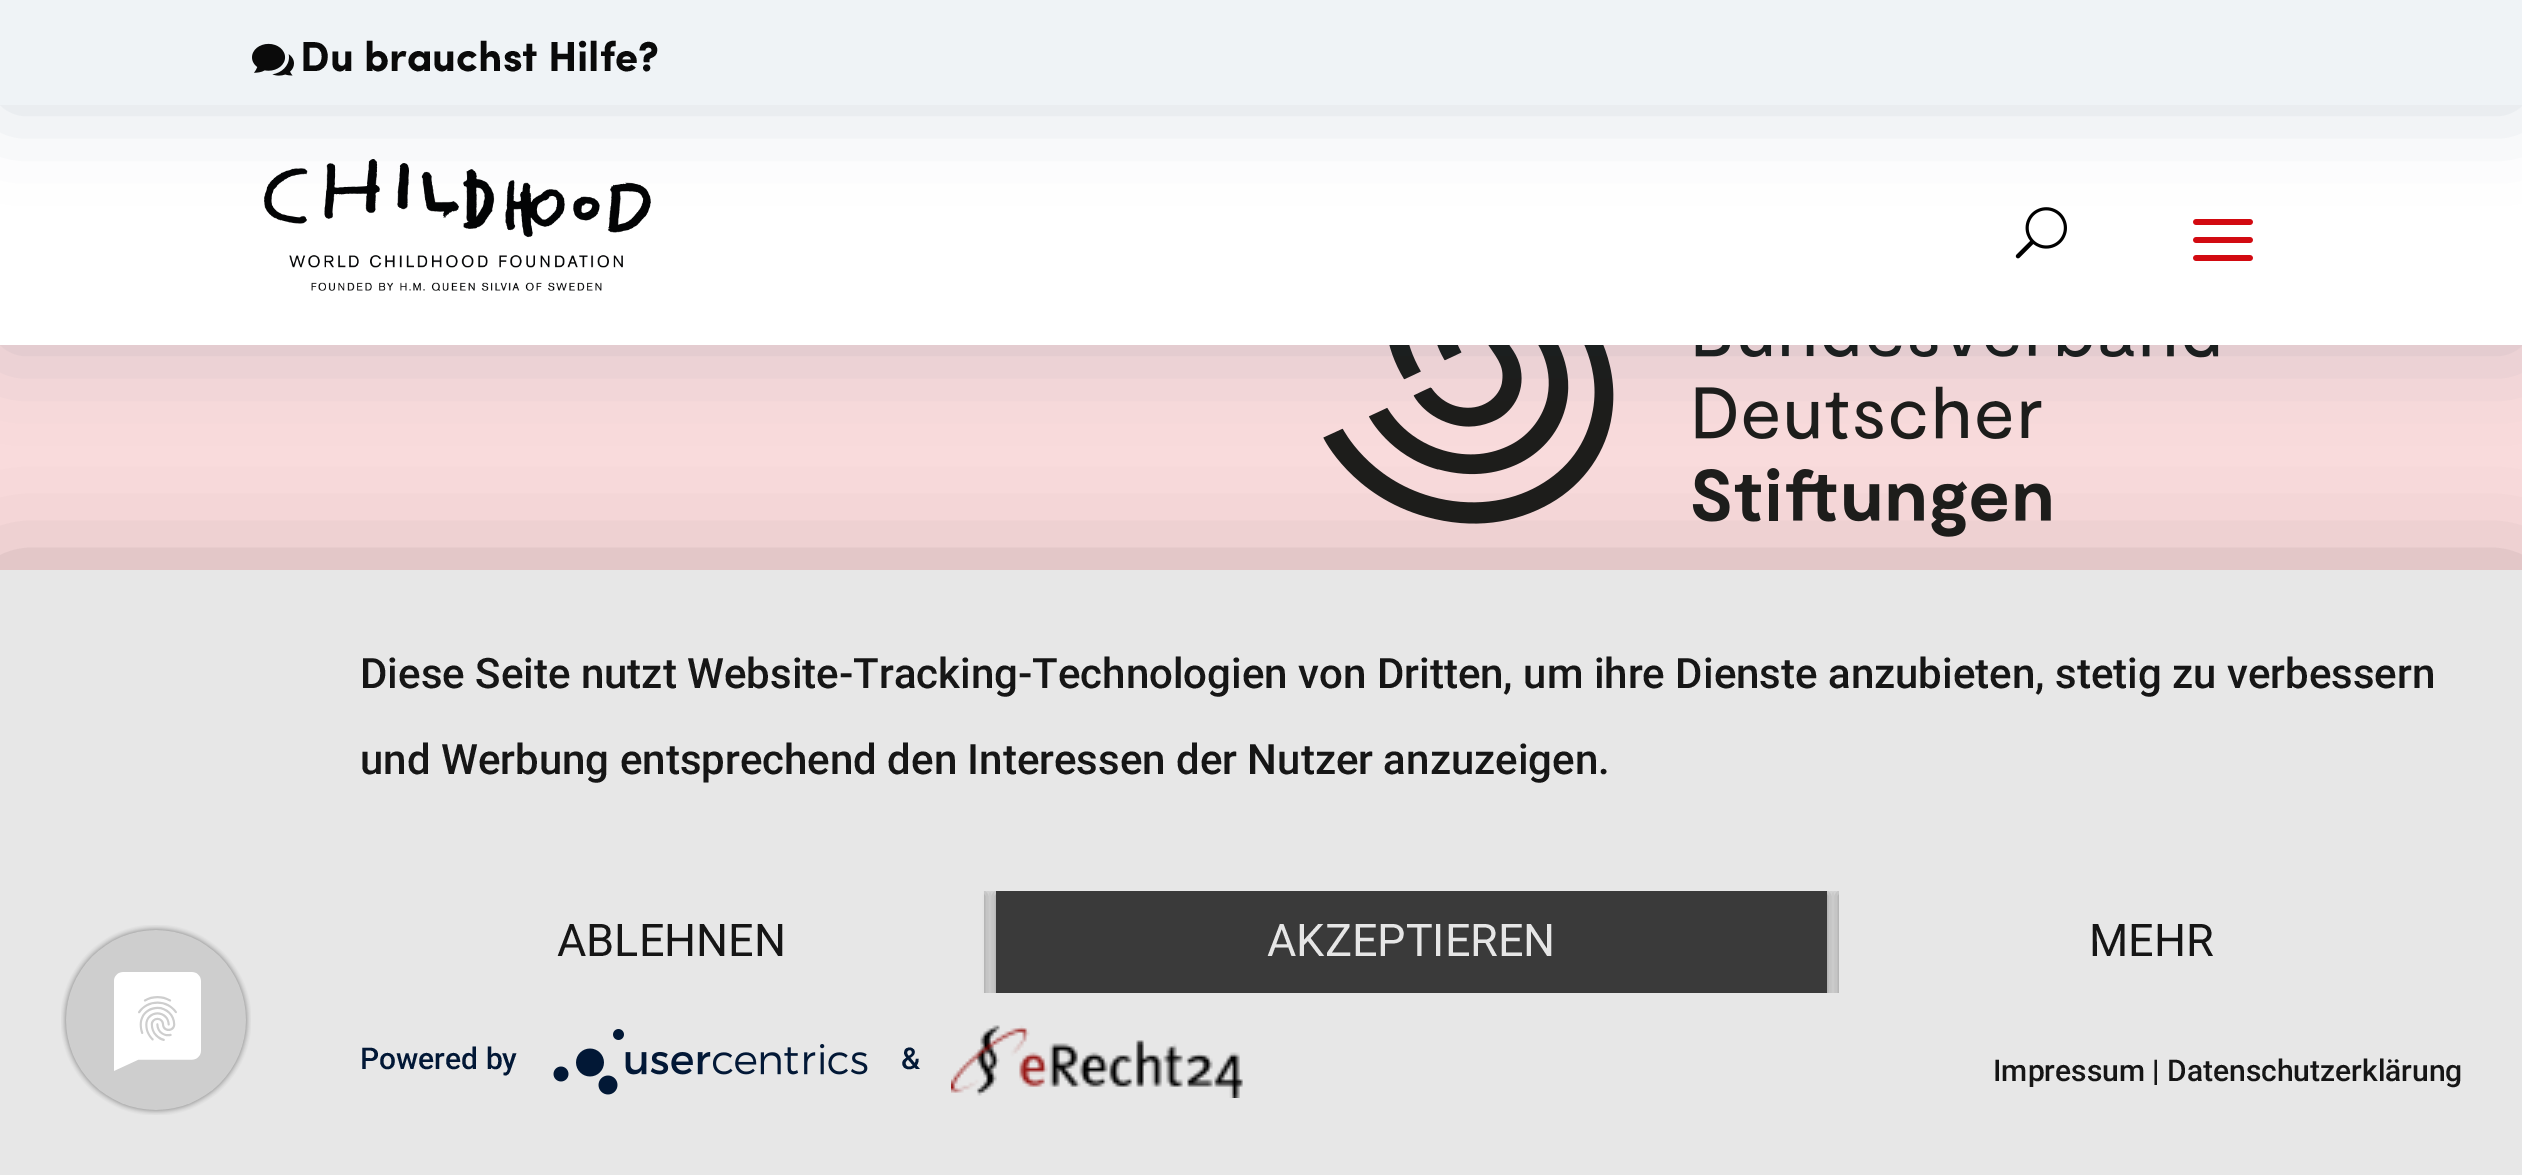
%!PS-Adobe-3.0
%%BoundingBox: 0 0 2522 1175
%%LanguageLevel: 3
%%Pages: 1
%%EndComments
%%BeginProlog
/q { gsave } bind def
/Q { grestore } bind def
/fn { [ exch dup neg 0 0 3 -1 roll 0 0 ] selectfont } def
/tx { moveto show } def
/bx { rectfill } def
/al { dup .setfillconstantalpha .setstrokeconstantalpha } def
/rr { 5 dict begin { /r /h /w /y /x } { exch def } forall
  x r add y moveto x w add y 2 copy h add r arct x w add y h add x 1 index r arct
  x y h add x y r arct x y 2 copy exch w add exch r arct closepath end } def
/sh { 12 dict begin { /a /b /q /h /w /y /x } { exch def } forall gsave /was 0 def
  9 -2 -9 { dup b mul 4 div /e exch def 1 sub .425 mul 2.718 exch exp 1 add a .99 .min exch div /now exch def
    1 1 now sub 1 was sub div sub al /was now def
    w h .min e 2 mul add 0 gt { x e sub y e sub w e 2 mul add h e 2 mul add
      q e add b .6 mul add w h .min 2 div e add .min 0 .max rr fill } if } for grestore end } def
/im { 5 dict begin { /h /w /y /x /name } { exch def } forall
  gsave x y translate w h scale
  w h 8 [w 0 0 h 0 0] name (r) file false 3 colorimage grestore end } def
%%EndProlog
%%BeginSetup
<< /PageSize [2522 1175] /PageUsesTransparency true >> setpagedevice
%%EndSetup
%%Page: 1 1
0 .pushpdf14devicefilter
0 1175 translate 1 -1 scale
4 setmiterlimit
0.976 0.859 0.863 setrgbcolor
0 0 2522 1175 bx
(image4.raw) 1323 345 896 192 im
0.027 0.2 0.329 setrgbcolor
0 105 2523 240 0 45 0.17 sh
1 setgray
0 105 2522 240 bx
(image0.raw) 264 159 387 132 im
(image1.raw) 2015 207 52 52 im
(image2.raw) 2193 219 60 42 im
0.027 0.2 0.329 setrgbcolor
0 0 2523 105 0 45 0.17 sh
0.937 0.953 0.965 setrgbcolor
0 0 2522 105 bx
(image3.raw) 252 43 42 33 im
/Sofia-Bold 42 fn
0.039 setgray
(Du brauchst Hilfe?) 300 71 tx
0 setgray
0 588 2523 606 0 54 0.3 sh
0.906 setgray
0 570 2522 605 bx
(image5.raw) 61 925 190 190 im
/Roboto-Medium 42 fn
0.086 setgray
(Diese Seite nutzt Website-Tracking-Technologien von Dritten, um ihre Dienste anzubieten, stetig zu verbessern) 360 688 tx
(und Werbung entsprechend den Interessen der Nutzer anzuzeigen.) 360 774 tx
q
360 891 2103 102 rectclip
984 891 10 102 rectclip
0 setgray
360 894 624 102 0 6 0.4 sh
Q
/Roboto-Regular 45 fn
(ABLEHNEN) 557 956 tx
q
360 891 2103 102 rectclip
0 setgray
996 894 831 102 0 6 0.4 sh
Q
0.227 setgray
996 891 831 102 bx
0.902 setgray
(AKZEPTIEREN) 1267 956 tx
q
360 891 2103 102 rectclip
0 setgray
1839 894 624 102 0 6 0.4 sh
Q
0.906 setgray
1839 891 624 102 bx
0.086 setgray
(MEHR) 2089 956 tx
/Roboto-Medium 30 fn
0.008 0.094 0.212 setrgbcolor
(Powered by) 360 1069 tx
(image6.raw) 553 1029 315 66 im
(&) 901 1069 tx
(image7.raw) 951 1025 292 73 im
0.086 setgray
(Impressum | Datenschutzerklärung) 1993 1081 tx
.poppdf14devicefilter showpage
%%EOF
